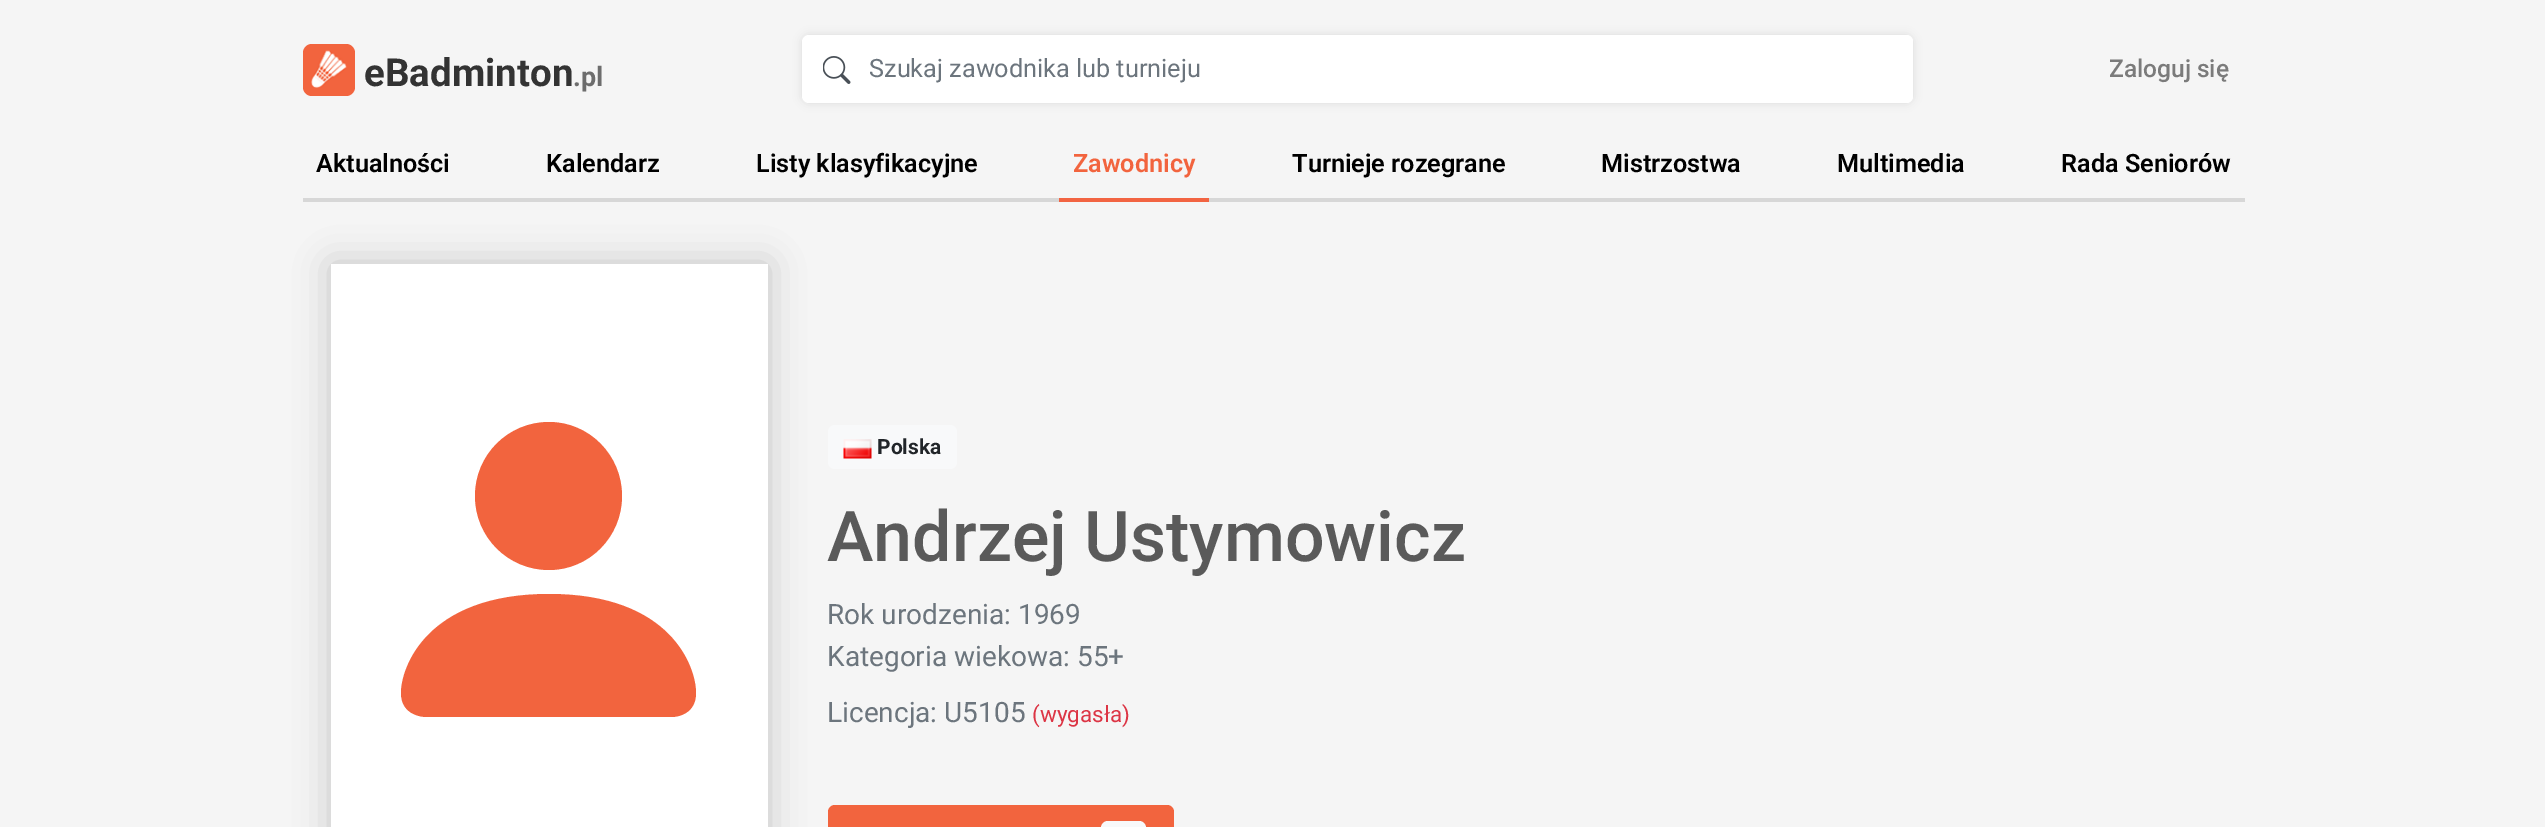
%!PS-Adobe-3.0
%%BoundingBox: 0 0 2545 827
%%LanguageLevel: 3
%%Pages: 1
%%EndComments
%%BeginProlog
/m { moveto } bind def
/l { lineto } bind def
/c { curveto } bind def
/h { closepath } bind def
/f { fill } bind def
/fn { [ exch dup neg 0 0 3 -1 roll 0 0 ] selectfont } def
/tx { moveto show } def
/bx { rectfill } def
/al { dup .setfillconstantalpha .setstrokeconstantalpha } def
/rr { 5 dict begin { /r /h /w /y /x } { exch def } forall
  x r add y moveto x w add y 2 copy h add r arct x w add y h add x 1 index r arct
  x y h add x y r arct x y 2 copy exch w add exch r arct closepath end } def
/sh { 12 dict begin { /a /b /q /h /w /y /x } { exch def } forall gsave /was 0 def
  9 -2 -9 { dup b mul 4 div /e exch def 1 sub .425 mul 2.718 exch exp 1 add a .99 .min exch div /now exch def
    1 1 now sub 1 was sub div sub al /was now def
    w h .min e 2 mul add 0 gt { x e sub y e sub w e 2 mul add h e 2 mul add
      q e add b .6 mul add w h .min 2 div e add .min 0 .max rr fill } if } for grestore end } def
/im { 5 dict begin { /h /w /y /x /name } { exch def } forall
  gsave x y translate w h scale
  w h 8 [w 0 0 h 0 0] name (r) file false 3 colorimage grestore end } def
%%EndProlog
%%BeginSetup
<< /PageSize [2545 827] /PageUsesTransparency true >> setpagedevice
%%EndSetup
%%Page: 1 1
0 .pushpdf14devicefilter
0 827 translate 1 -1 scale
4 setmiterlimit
0.961 setgray
0 0 2545 827 bx
0.949 0.392 0.243 setrgbcolor
303 44 52 52 9 rr f
(image0.raw) 310 50 37 38 im
/Roboto-Bold 38.5 fn
0.2 setgray
(eBadminton) 364 86 tx
/Roboto-Bold 27 fn
0.427 setgray
(.pl) 573 86 tx
0 setgray
802 35 1111 68 7 4.5 0.1 sh
1 setgray
802 35 1111 68 7 rr f
(image1.raw) 823 56 28 28 im
870 35 m 1906 35 l 1910 35 1913 38 1913 42 c 1913 96 l 1913 100 1910 103 1906 103 c 870 103 l h f
/Roboto-Regular 25.25 fn
0.424 0.459 0.49 setrgbcolor
(Szukaj zawodnika lub turnieju) 869 77 tx
/Roboto-Medium 24.5 fn
0.482 setgray
(Zaloguj się) 2109 77 tx
0.843 setgray
303 198 1942 4 bx
/Roboto-SemiBold 25.25 fn
0 setgray
(Aktualności) 316 172 tx
(Kalendarz) 546 172 tx
(Listy klasyfikacyjne) 756 172 tx
0.949 0.392 0.243 setrgbcolor
(Zawodnicy) 1073 172 tx
0.949 0.392 0.259 setrgbcolor
1059 198 150 4 bx
0 setgray
(Turnieje rozegrane) 1292 172 tx
(Mistrzostwa) 1601 172 tx
(Multimedia) 1837 172 tx
(Rada Seniorów) 2061 172 tx
331 264 437 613 0 17.5 0.2 sh
1 setgray
331 264 437 563 bx
0.949 0.392 0.243 setrgbcolor
426 717 m 426 717 401 717 401 693 c 401 668 426 594 549 594 c 672 594 696 668 696 693 c 696 717 672 717 672 717 c h 549 570 m 589 570 622 537 622 496 c 622 455 589 422 549 422 c 508 422 475 455 475 496 c 475 537 508 570 549 570 c h eofill
0.973 0.976 0.98 setrgbcolor
828 425 129 44 7 rr f
(image2.raw) 843 439 29 20 im
/Roboto-Bold 21 fn
0.129 0.145 0.161 setrgbcolor
(Polska) 877 454 tx
/Roboto-Medium 70 fn
0.353 setgray
(Andrzej Ustymowicz) 827 561 tx
/Roboto-Regular 28 fn
0.424 0.459 0.49 setrgbcolor
(Rok urodzenia: 1969) 827 624 tx
(Kategoria wiekowa: 55+) 827 666 tx
(Licencja: U5105) 827 722 tx
/Roboto-Regular 22.5 fn
0.863 0.208 0.271 setrgbcolor
(\(wygasła\)) 1032 722 tx
0.949 0.392 0.243 setrgbcolor
828 805 346 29 7 rr f
0.973 0.976 0.98 setrgbcolor
1101 821 45 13 7 rr f
.poppdf14devicefilter showpage
%%EOF
